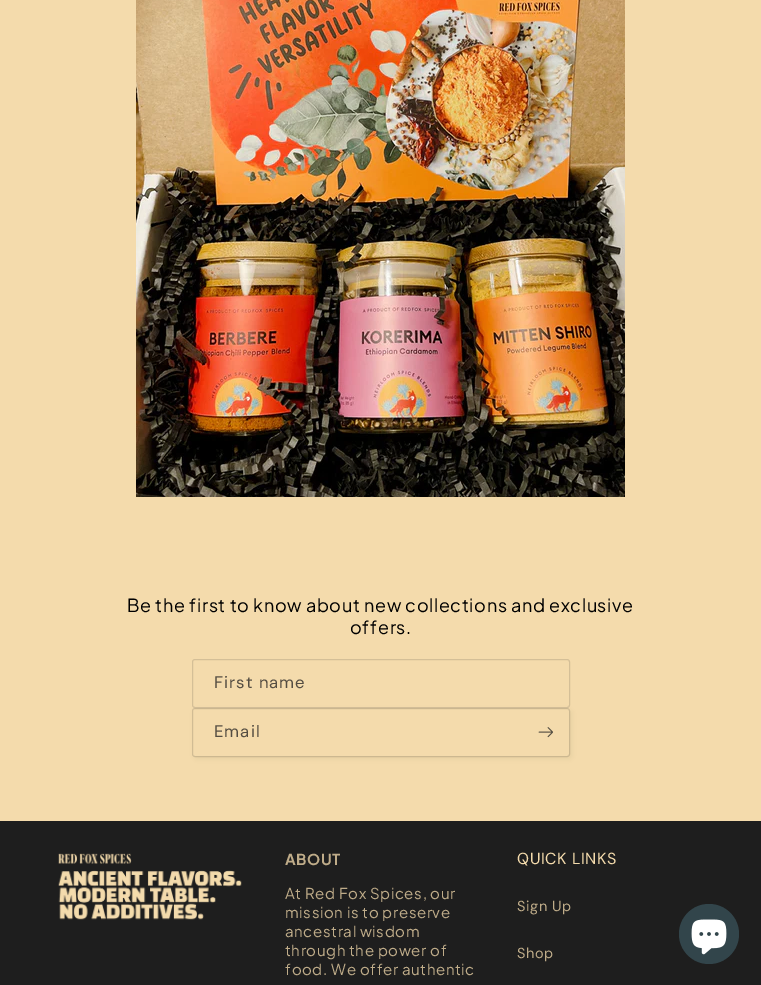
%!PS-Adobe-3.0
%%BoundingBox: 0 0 761 985
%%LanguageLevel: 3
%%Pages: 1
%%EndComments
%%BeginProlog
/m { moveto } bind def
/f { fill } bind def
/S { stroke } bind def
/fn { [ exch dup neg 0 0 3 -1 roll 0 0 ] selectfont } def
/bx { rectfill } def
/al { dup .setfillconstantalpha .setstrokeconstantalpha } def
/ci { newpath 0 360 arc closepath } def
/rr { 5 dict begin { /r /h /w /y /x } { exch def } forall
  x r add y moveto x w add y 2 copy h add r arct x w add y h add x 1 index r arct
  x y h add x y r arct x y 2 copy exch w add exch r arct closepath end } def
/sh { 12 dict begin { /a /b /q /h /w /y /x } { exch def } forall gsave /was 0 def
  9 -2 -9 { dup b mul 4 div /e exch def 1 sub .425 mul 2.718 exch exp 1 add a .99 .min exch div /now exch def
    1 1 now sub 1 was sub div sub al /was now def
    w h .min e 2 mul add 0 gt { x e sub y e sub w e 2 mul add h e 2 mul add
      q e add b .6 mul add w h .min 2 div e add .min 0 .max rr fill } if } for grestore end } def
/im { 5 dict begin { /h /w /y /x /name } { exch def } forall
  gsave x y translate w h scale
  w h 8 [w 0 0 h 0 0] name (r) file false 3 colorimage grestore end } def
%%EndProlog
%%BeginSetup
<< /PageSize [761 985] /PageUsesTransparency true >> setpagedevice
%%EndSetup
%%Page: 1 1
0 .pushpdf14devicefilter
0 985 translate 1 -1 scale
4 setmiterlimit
0.957 0.859 0.675 setrgbcolor
0 0 761 985 bx
(image0.raw) 136 0 489 497 im
/PlusJakartaSans-Regular 18 fn
0 setgray
127 612 m 0.63 0 (Be the first to know about new collections and exclusive) ashow
350 634 m 0.63 0 (offers.) ashow
0.15 al
0.118 setgray
192.5 659.5 377 48 2.5 rr S
/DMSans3-Regular 16.75 fn
1 al
0.329 0.302 0.259 setrgbcolor
214 688 m 1 0 (First name) ashow
0.118 setgray
194 710 378 49 3 2.5 0.05 sh
0.957 0.859 0.675 setrgbcolor
193 709 376 47 2 rr f
0.15 al
0.118 setgray
192.5 708.5 377 48 2.5 rr S
1 al
0.329 0.302 0.259 setrgbcolor
214 737 m 1 0 (Email) ashow
(image1.raw) 538 727 15 11 im
0.118 setgray
0 821 761 164 bx
(image2.raw) 58 853 184 67 im
/PlusJakartaSans-Bold 15 fn
0.749 0.675 0.537 setrgbcolor
285 865 m 0.63 0 (ABOUT) ashow
/PlusJakartaSans-Regular 15 fn
285 899 m 0.63 0 (At Red Fox Spices, our) ashow
285 918 m 0.63 0 (mission is to preserve) ashow
285 937 m 0.63 0 (ancestral wisdom) ashow
285 956 m 0.63 0 (through the power of) ashow
285 975 m 0.63 0 (food. We offer authentic) ashow
/DMSans-Regular 16 fn
0.957 0.859 0.675 setrgbcolor
517 864 m 0.6 0 (QUICK LINKS) ashow
/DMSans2-Regular 14.5 fn
0.749 0.675 0.537 setrgbcolor
517 911 m 0.63 0 (Sign Up) ashow
517 958 m 0.63 0 (Shop) ashow
0.196 0.271 0.294 setrgbcolor
709 934 30 ci f
(image3.raw) 691 919 36 36 im
.poppdf14devicefilter showpage
%%EOF
